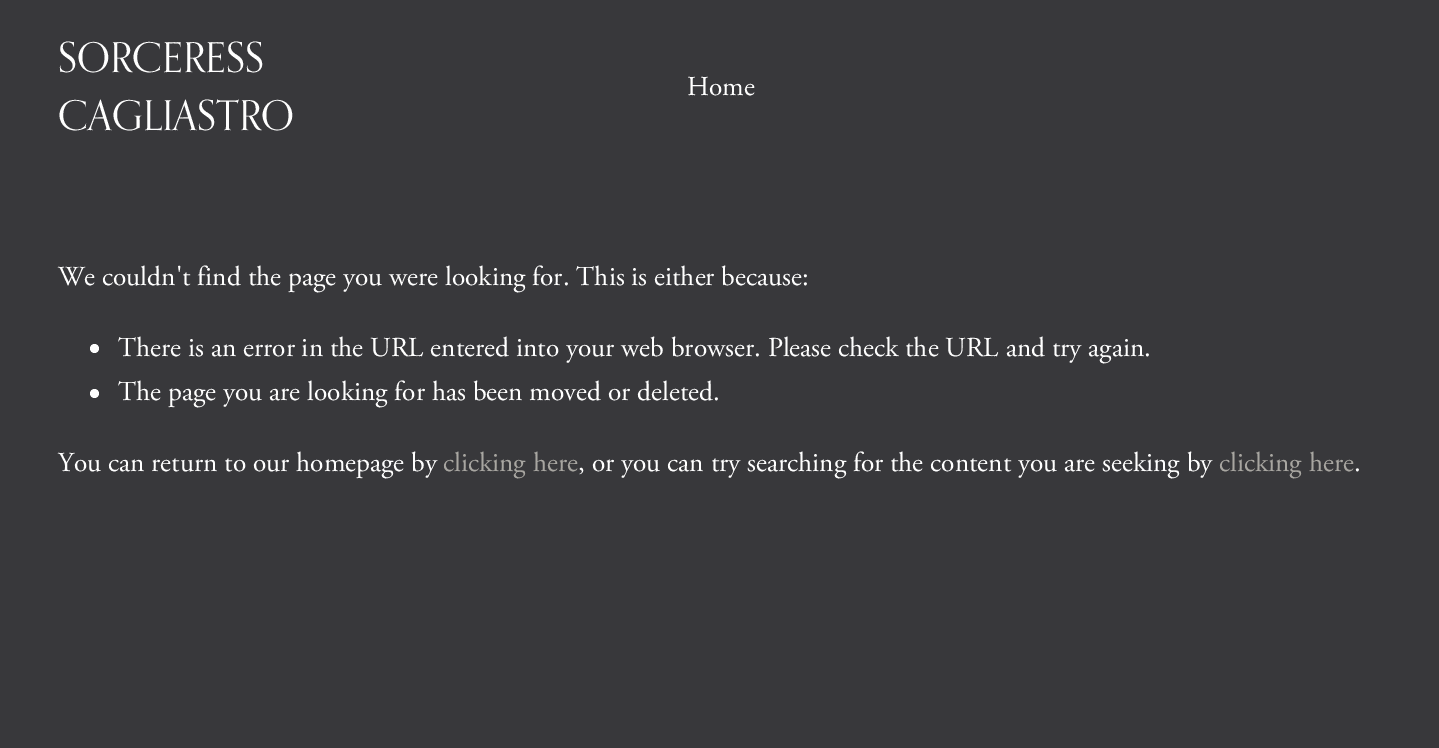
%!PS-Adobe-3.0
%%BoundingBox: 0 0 1439 748
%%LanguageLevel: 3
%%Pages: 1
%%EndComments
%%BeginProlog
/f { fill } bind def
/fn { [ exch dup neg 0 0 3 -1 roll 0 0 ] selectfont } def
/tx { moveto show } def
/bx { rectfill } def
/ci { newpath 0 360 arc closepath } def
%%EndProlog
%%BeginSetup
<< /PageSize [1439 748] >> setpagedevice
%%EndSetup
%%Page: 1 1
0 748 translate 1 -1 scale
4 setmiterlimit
0.22 0.22 0.231 setrgbcolor
0 0 1439 748 bx
/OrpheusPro-Regular 41.25 fn
1 setgray
(SORCERESS) 58 72 tx
(CAGLIASTRO) 58 130 tx
/AdobeGaramond-Regular 27.45 fn
(Home) 687 95 tx
(We couldn't find the page you were looking for. This is either because:) 58 285 tx
94.5 348.5 4.5 ci f
(There is an error in the URL entered into your web browser. Please check the URL and try again.) 118 356 tx
94.5 393.5 4.5 ci f
(The page you are looking for has been moved or deleted.) 118 400 tx
(You can return to our homepage by) 58 471 tx
0.659 0.651 0.631 setrgbcolor
(clicking here) 443 471 tx
1 setgray
(, or you can try searching for the content you are seeking by) 578 471 tx
0.659 0.651 0.631 setrgbcolor
(clicking here) 1219 471 tx
1 setgray
(.) 1354 471 tx
showpage
%%EOF
